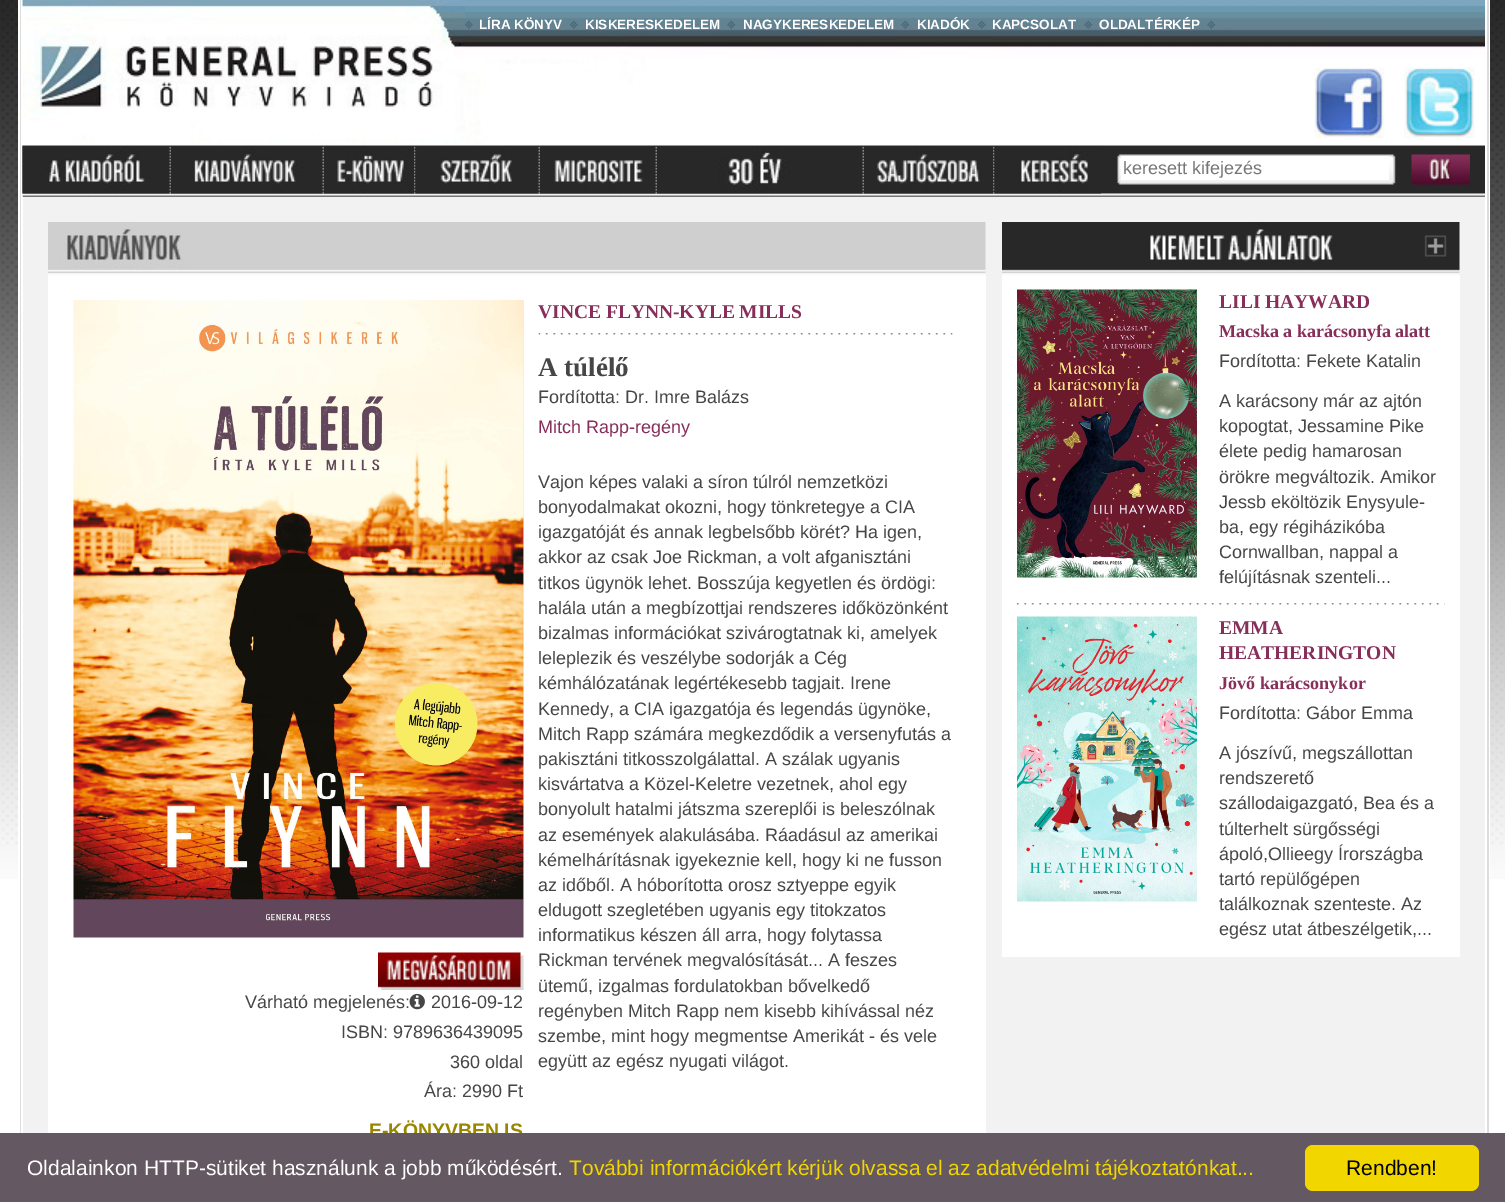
%!PS-Adobe-3.0
%%BoundingBox: 0 0 1505 1202
%%LanguageLevel: 3
%%Pages: 1
%%EndComments
%%BeginProlog
/f { fill } bind def
/fn { [ exch dup neg 0 0 3 -1 roll 0 0 ] selectfont } def
/tx { moveto show } def
/bx { rectfill } def
/rr { 5 dict begin { /r /h /w /y /x } { exch def } forall
  x r add y moveto x w add y 2 copy h add r arct x w add y h add x 1 index r arct
  x y h add x y r arct x y 2 copy exch w add exch r arct closepath end } def
/im { 5 dict begin { /h /w /y /x /name } { exch def } forall
  gsave x y translate w h scale
  w h 8 [w 0 0 h 0 0] name (r) file false 3 colorimage grestore end } def
%%EndProlog
%%BeginSetup
<< /PageSize [1505 1202] >> setpagedevice
%%EndSetup
%%Page: 1 1
0 1202 translate 1 -1 scale
4 setmiterlimit
1 setgray
0 0 1505 1202 bx
(image0.raw) 0 0 1505 879 im
1489 0 1 879 bx
18 0 2 879 bx
0.863 setgray
1487 0 2 1133 bx
20 0 1 1133 bx
1 setgray
1485 0 2 879 bx
21 0 2 879 bx
(image12.raw) 22 145 1463 52 im
(image13.raw) 22 145 148 49 im
(image14.raw) 169 145 2 49 im
(image15.raw) 171 145 152 49 im
(image14.raw) 322 145 2 49 im
(image16.raw) 324 145 90 49 im
(image17.raw) 414 145 2 48 im
(image18.raw) 415 145 124 49 im
(image1.raw) 22 0 443 146 im
(image14.raw) 538 145 2 49 im
(image19.raw) 540 145 116 49 im
(image14.raw) 655 145 2 49 im
(image20.raw) 657 145 206 49 im
(image14.raw) 862 145 2 49 im
(image21.raw) 864 145 129 49 im
(image23.raw) 993 146 2 47 im
(image22.raw) 994 145 107 49 im
(image2.raw) 465 0 1020 146 im
(image3.raw) 465 21 8 8 im
/LiberationSans-Bold 13.5 fn
(LÍRA KÖNYV) 479 29 tx
(image4.raw) 570 21 8 8 im
(KISKERESKEDELEM) 585 29 tx
(image5.raw) 727 21 8 8 im
(NAGYKERESKEDELEM) 743 29 tx
(image6.raw) 901 21 8 8 im
(KIADÓK) 917 29 tx
(image7.raw) 978 21 8 8 im
(KAPCSOLAT) 992 29 tx
(image8.raw) 1084 21 8 8 im
(OLDALTÉRKÉP) 1099 29 tx
(image9.raw) 1207 21 8 8 im
(image10.raw) 1314 67 71 71 im
(image11.raw) 1404 67 71 71 im
(image24.raw) 1117 154 279 31 im
1121 156 268 24 bx
/LiberationSans-Regular 18 fn
0.467 setgray
(keresett kifejezés) 1123 174 tx
(image25.raw) 1411 154 59 31 im
0.949 setgray
23 197 1462 936 bx
(image26.raw) 48 222 938 53 im
1 setgray
48 275 938 858 bx
(image27.raw) 73 300 451 638 im
(image28.raw) 378 952 146 38 im
0.275 setgray
(Várható megjelenés:) 245 1008 tx
(image29.raw) 409 993 16 17 im
(2016-09-12) 431 1008 tx
(ISBN: 9789636439095) 341 1038 tx
(360 oldal) 450 1068 tx
(Ára: 2990 Ft) 424 1097 tx
/LiberationSans-Bold 19.5 fn
0.6 0.525 0 setrgbcolor
(E-KÖNYVBEN IS) 369 1137 tx
/LiberationSerif-Bold 19.5 fn
0.529 0.18 0.353 setrgbcolor
(VINCE FLYNN-KYLE MILLS) 538 318 tx
(image30.raw) 538 333 415 2 im
/LiberationSerif-Bold 27 fn
0.275 setgray
(A túlélő) 538 376 tx
/LiberationSans-Regular 18 fn
(Fordította: Dr. Imre Balázs) 538 403 tx
0.529 0.18 0.353 setrgbcolor
(Mitch Rapp-regény) 538 433 tx
0.275 setgray
(Vajon képes valaki a síron túlról nemzetközi) 538 488 tx
(bonyodalmakat okozni, hogy tönkretegye a CIA) 538 513 tx
(igazgatóját és annak legbelsőbb körét? Ha igen,) 538 538 tx
(akkor az csak Joe Rickman, a volt afganisztáni) 538 563 tx
(titkos ügynök lehet. Bosszúja kegyetlen és ördögi:) 538 589 tx
(halála után a megbízottjai rendszeres időközönként) 538 614 tx
(bizalmas információkat szivárogtatnak ki, amelyek) 538 639 tx
(leleplezik és veszélybe sodorják a Cég) 538 664 tx
(kémhálózatának legértékesebb tagjait. Irene) 538 689 tx
(Kennedy, a CIA igazgatója és legendás ügynöke,) 538 715 tx
(Mitch Rapp számára megkezdődik a versenyfutás a) 538 740 tx
(pakisztáni titkosszolgálattal. A szálak ugyanis) 538 765 tx
(kisvártatva a Közel-Keletre vezetnek, ahol egy) 538 790 tx
(bonyolult hatalmi játszma szereplői is beleszólnak) 538 815 tx
(az események alakulásába. Ráadásul az amerikai) 538 841 tx
(kémelhárításnak igyekeznie kell, hogy ki ne fusson) 538 866 tx
(az időből. A hóborította orosz sztyeppe egyik) 538 891 tx
(eldugott szegletében ugyanis egy titokzatos) 538 916 tx
(informatikus készen áll arra, hogy folytassa) 538 941 tx
(Rickman tervének megvalósítását... A feszes) 538 966 tx
(ütemű, izgalmas fordulatokban bővelkedő) 538 992 tx
(regényben Mitch Rapp nem kisebb kihívással néz) 538 1017 tx
(szembe, mint hogy megmentse Amerikát - és vele) 538 1042 tx
(együtt az egész nyugati világot.) 538 1067 tx
(image31.raw) 1002 222 458 53 im
1 setgray
1002 275 458 682 bx
(image32.raw) 1017 289 180 289 im
/LiberationSerif-Bold 19.5 fn
0.529 0.18 0.353 setrgbcolor
(LILI HAYWARD) 1219 308 tx
/LiberationSerif-Bold 18 fn
(Macska a karácsonyfa alatt) 1219 337 tx
/LiberationSans-Regular 18 fn
0.275 setgray
(Fordította: Fekete Katalin) 1219 367 tx
(A karácsony már az ajtón) 1219 407 tx
(kopogtat, Jessamine Pike) 1219 432 tx
(élete pedig hamarosan) 1219 457 tx
(örökre megváltozik. Amikor) 1219 483 tx
(Jessb eköltözik Enysyule-) 1219 508 tx
(ba, egy régiházikóba) 1219 533 tx
(Cornwallban, nappal a) 1219 558 tx
(felújításnak szenteli...) 1219 583 tx
(image33.raw) 1017 603 428 2 im
(image34.raw) 1017 616 180 286 im
/LiberationSerif-Bold 19.5 fn
0.529 0.18 0.353 setrgbcolor
(EMMA) 1219 634 tx
(HEATHERINGTON) 1219 659 tx
/LiberationSerif-Bold 18 fn
(Jövő karácsonykor) 1219 689 tx
/LiberationSans-Regular 18 fn
0.275 setgray
(Fordította: Gábor Emma) 1219 719 tx
(A jószívű, megszállottan) 1219 759 tx
(rendszerető) 1219 784 tx
(szállodaigazgató, Bea és a) 1219 809 tx
(túlterhelt sürgősségi) 1219 835 tx
(ápoló,Ollieegy Írországba) 1219 860 tx
(tartó repülőgépen) 1219 885 tx
(találkoznak szenteste. Az) 1219 910 tx
(egész utat átbeszélgetik,...) 1219 935 tx
0.392 0.345 0.384 setrgbcolor
0 1133 1505 69 bx
/LiberationSans-Regular 21 fn
1 setgray
(Oldalainkon HTTP-sütiket használunk a jobb működésért.) 27 1175 tx
0.945 0.839 0 setrgbcolor
(További információkért kérjük olvassa el az adatvédelmi tájékoztatónkat...) 569 1175 tx
1305 1145 174 46 8 rr f
0 setgray
(Rendben!) 1346 1175 tx
showpage
%%EOF
